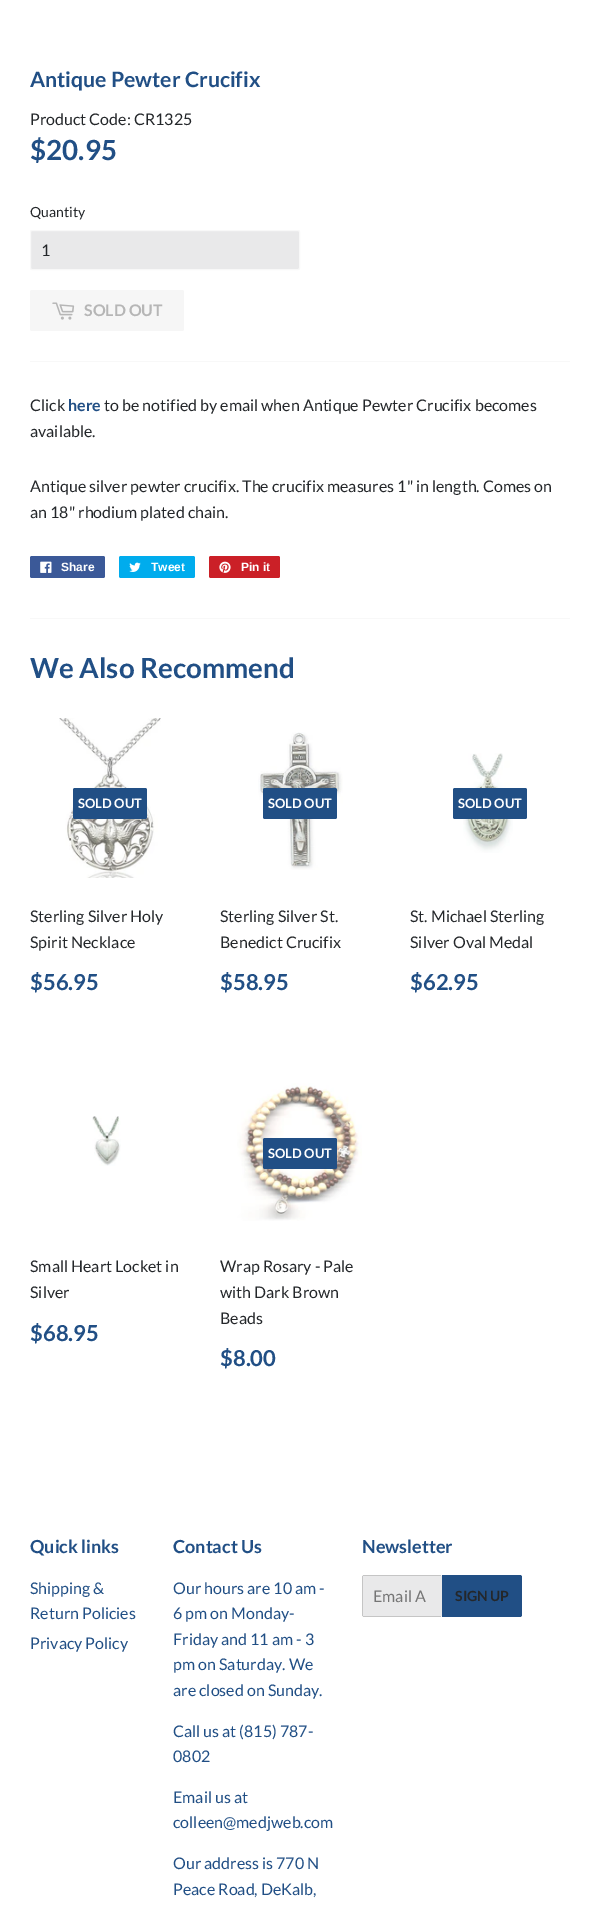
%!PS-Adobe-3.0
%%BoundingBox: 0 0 600 1907
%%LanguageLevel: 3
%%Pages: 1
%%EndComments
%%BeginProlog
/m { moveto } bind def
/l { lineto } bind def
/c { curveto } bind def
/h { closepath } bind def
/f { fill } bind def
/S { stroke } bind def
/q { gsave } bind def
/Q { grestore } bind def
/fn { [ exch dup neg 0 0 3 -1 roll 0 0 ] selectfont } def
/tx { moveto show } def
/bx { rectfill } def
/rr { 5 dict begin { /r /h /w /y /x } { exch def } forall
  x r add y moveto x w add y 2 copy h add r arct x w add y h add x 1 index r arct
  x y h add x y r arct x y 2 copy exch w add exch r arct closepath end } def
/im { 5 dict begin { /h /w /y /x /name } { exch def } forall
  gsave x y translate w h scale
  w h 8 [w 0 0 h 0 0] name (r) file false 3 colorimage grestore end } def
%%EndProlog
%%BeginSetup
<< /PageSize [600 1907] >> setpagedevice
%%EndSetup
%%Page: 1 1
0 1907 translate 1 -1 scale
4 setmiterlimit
1 setgray
0 0 600 1907 bx
/Lato-Bold 21.25 fn
0.129 0.31 0.522 setrgbcolor
(Antique Pewter Crucifix) 30 87 tx
/Lato-Regular 16 fn
0.141 0.153 0.165 setrgbcolor
(Product Code: CR1325) 30 125 tx
/Lato-Bold 27.75 fn
0.129 0.31 0.522 setrgbcolor
($20.95) 30 160 tx
/Lato-Regular 14 fn
0.141 0.153 0.165 setrgbcolor
(Quantity) 30 217 tx
0.914 0.914 0.918 setrgbcolor
30.5 230.5 269 39 1.5 rr q f Q
0.973 setgray
S
/Lato-Regular 16 fn
0.141 0.153 0.165 setrgbcolor
(1) 41 256 tx
0.965 setgray
30 290 154 41 2 rr f
(image0.raw) 52 302 23 18 im
/Lato-Bold 16 fn
0.714 setgray
(SOLD OUT) 84 316 tx
0.973 setgray
30 361 540 1 bx
/Lato-Regular 16 fn
0.141 0.153 0.165 setrgbcolor
(Click) 30 411 tx
/Lato-Bold 16 fn
0.129 0.31 0.522 setrgbcolor
(here) 68 411 tx
/Lato-Regular 16 fn
0.141 0.153 0.165 setrgbcolor
(to be notified by email when Antique Pewter Crucifix becomes) 104 411 tx
(available.) 30 437 tx
(Antique silver pewter crucifix. The crucifix measures 1" in length. Comes on) 30 492 tx
(an 18" rhodium plated chain.) 30 518 tx
0.231 0.349 0.596 setrgbcolor
30 556 75 22 2 rr f
(image1.raw) 40 561 12 12 im
/LiberationSans-Bold 12 fn
1 setgray
(Share) 61 571 tx
0 0.675 0.929 setrgbcolor
119 556 76 22 2 rr f
(image2.raw) 129 562 12 10 im
1 setgray
(Tweet) 151 571 tx
0.796 0.125 0.153 setrgbcolor
209 556 71 22 2 rr f
(image3.raw) 219 561 12 12 im
1 setgray
(Pin it) 241 571 tx
0.973 setgray
30 618 540 1 bx
/Lato-Bold 27.75 fn
0.129 0.31 0.522 setrgbcolor
(We Also Recommend) 30 678 tx
(image4.raw) 59 718 102 160 im
73 788 74 31 2 rr f
/Lato-Bold 13 fn
1 setgray
(SOLD OUT) 78 808 tx
/Lato-Regular 16 fn
0.141 0.153 0.165 setrgbcolor
(Sterling Silver Holy) 30 922 tx
(Spirit Necklace) 30 948 tx
/Lato-Bold 22 fn
0.129 0.31 0.522 setrgbcolor
($56.95) 30 990 tx
(image5.raw) 258 732 85 138 im
263 788 74 31 2 rr f
/Lato-Bold 13 fn
1 setgray
(SOLD OUT) 268 808 tx
/Lato-Regular 16 fn
0.141 0.153 0.165 setrgbcolor
(Sterling Silver St.) 220 922 tx
(Benedict Crucifix) 220 948 tx
/Lato-Bold 22 fn
0.129 0.31 0.522 setrgbcolor
($58.95) 220 990 tx
(image6.raw) 463 753 50 100 im
453 788 74 31 2 rr f
/Lato-Bold 13 fn
1 setgray
(SOLD OUT) 458 808 tx
/Lato-Regular 16 fn
0.141 0.153 0.165 setrgbcolor
(St. Michael Sterling) 410 922 tx
(Silver Oval Medal) 410 948 tx
/Lato-Bold 22 fn
0.129 0.31 0.522 setrgbcolor
($62.95) 410 990 tx
(image7.raw) 92 1116 29 50 im
/Lato-Regular 16 fn
0.141 0.153 0.165 setrgbcolor
(Small Heart Locket in) 30 1272 tx
(Silver) 30 1298 tx
/Lato-Bold 22 fn
0.129 0.31 0.522 setrgbcolor
($68.95) 30 1341 tx
(image8.raw) 237 1083 125 138 im
263 1138 74 31 2 rr f
/Lato-Bold 13 fn
1 setgray
(SOLD OUT) 268 1158 tx
/Lato-Regular 16 fn
0.141 0.153 0.165 setrgbcolor
(Wrap Rosary - Pale) 220 1272 tx
(with Dark Brown) 220 1298 tx
(Beads) 220 1324 tx
/Lato-Bold 22 fn
0.129 0.31 0.522 setrgbcolor
($8.00) 220 1366 tx
/Lato-Bold 18 fn
(Quick links) 30 1553 tx
/Lato-Regular 16 fn
(Shipping &) 30 1594 tx
(Return Policies) 30 1619 tx
(Privacy Policy) 30 1649 tx
/Lato-Bold 18 fn
(Contact Us) 173 1553 tx
/Lato-Regular 16 fn
(Our hours are 10 am -) 173 1594 tx
(6 pm on Monday-) 173 1619 tx
(Friday and 11 am - 3) 173 1645 tx
(pm on Saturday. We) 173 1670 tx
(are closed on Sunday.) 173 1696 tx
(Call us at \(815\) 787-) 173 1737 tx
(0802) 173 1762 tx
(Email us at) 173 1803 tx
(colleen@medjweb.com) 173 1828 tx
(Our address is 770 N) 173 1869 tx
(Peace Road, DeKalb,) 173 1895 tx
/Lato-Bold 18 fn
(Newsletter) 362 1553 tx
0.914 0.914 0.918 setrgbcolor
362 1575 80 42 2 rr f
0.773 setgray
363 1575 78 1 bx
363 1616 78 1 bx
362 1576 1 40 bx
/Lato-Regular 16 fn
0.459 setgray
(Email A) 373 1602 tx
0.129 0.31 0.522 setrgbcolor
442 1575 m 520 1575 l 521 1575 522 1576 522 1577 c 522 1615 l 522 1616 521 1617 520 1617 c 442 1617 l h f
/Lato-Bold 14 fn
0.141 0.153 0.165 setrgbcolor
(SIGN UP) 455 1601 tx
showpage
%%EOF
